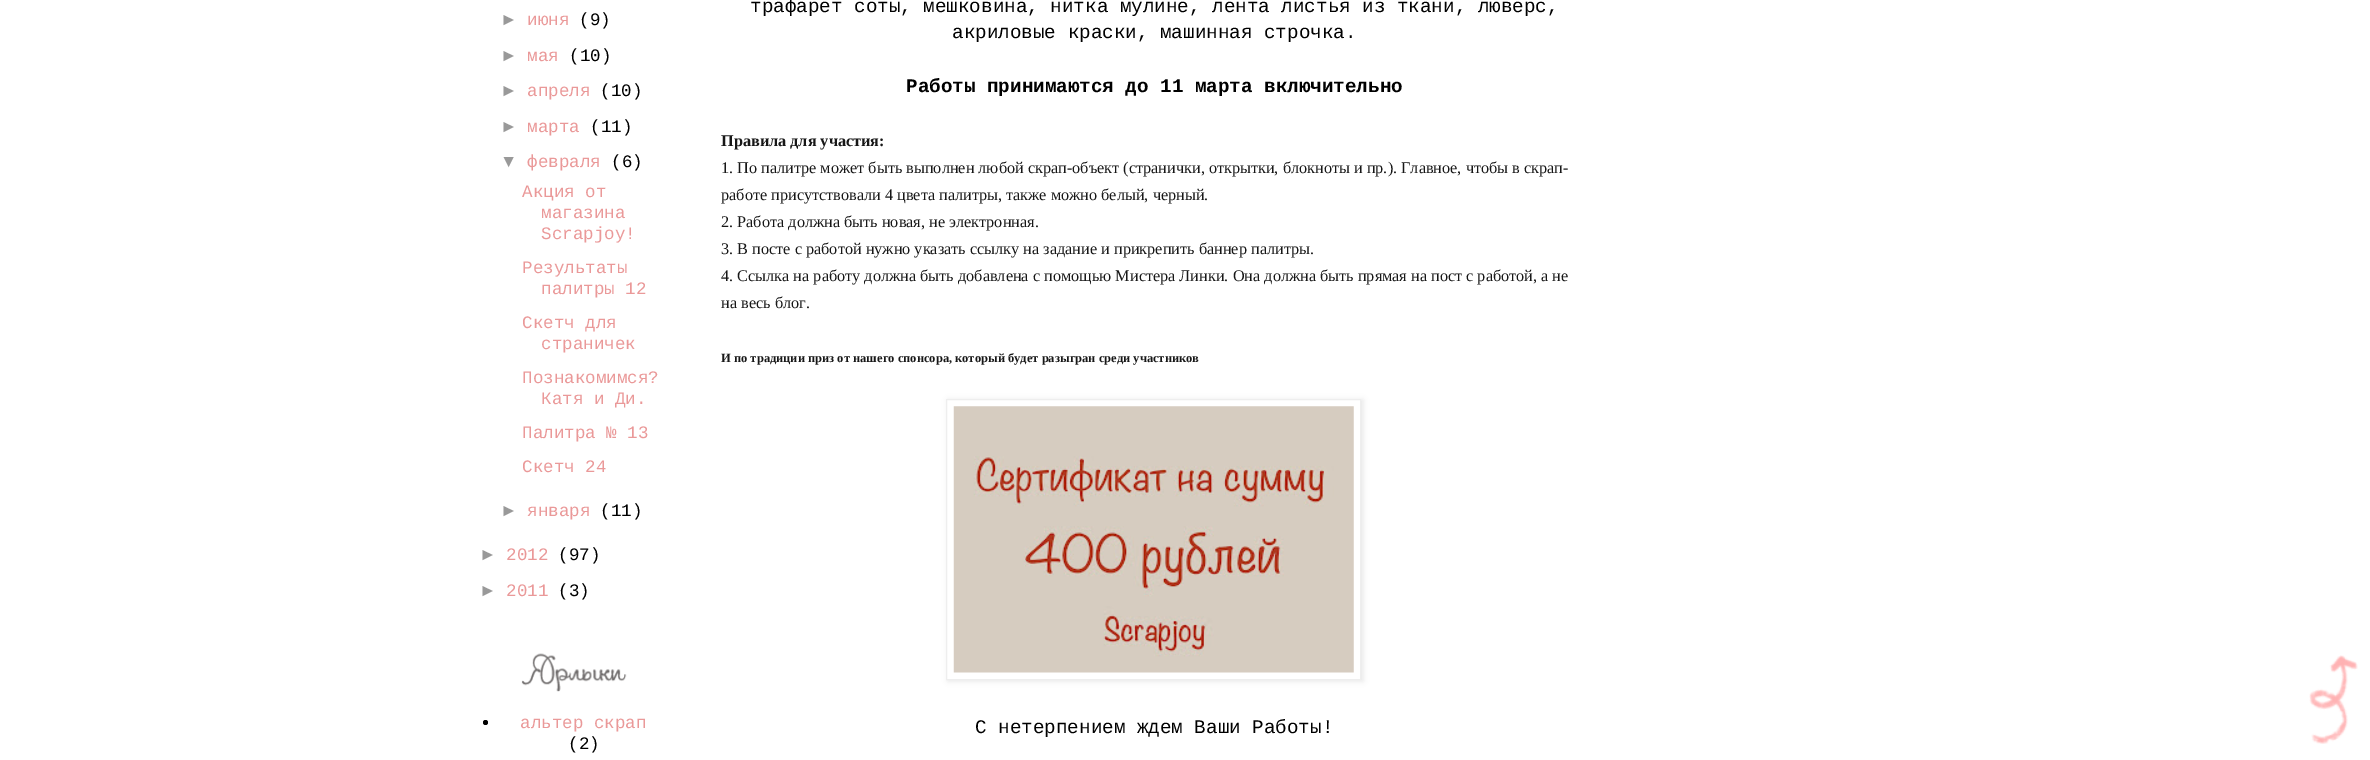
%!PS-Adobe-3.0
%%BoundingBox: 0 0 2370 760
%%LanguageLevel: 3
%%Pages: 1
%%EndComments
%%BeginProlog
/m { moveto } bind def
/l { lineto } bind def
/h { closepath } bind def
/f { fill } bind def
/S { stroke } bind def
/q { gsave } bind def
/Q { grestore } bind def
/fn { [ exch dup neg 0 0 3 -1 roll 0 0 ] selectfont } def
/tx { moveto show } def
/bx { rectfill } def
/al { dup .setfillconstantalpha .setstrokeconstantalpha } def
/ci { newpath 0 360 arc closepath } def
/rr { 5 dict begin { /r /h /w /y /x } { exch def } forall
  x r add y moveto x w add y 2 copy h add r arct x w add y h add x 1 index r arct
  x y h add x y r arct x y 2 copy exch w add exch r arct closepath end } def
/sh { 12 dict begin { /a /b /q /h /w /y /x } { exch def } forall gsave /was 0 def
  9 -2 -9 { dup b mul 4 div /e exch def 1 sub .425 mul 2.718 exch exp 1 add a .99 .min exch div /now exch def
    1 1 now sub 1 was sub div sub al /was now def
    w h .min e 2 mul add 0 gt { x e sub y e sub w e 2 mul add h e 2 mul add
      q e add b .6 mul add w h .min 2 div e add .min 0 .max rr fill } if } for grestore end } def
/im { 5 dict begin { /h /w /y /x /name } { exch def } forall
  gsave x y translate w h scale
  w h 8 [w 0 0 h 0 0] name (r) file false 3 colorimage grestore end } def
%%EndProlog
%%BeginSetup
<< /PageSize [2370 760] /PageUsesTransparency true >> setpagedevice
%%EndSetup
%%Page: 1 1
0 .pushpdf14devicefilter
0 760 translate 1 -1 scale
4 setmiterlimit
1 setgray
0 0 2370 760 bx
/LiberationSans-Regular 17.5 fn
0.6 setgray
(►) 500 25 tx
/LiberationMono-Regular 17.5 fn
0.918 0.6 0.6 setrgbcolor
(июня) 527 25 tx
0 setgray
(\(9\)) 579 25 tx
/LiberationSans-Regular 17.5 fn
0.6 setgray
(►) 500 61 tx
/LiberationMono-Regular 17.5 fn
0.918 0.6 0.6 setrgbcolor
(мая) 527 61 tx
0 setgray
(\(10\)) 569 61 tx
/LiberationSans-Regular 17.5 fn
0.6 setgray
(►) 500 96 tx
/LiberationMono-Regular 17.5 fn
0.918 0.6 0.6 setrgbcolor
(апреля) 527 96 tx
0 setgray
(\(10\)) 600 96 tx
/LiberationSans-Regular 17.5 fn
0.6 setgray
(►) 500 132 tx
/LiberationMono-Regular 17.5 fn
0.918 0.6 0.6 setrgbcolor
(марта) 527 132 tx
0 setgray
(\(11\)) 590 132 tx
/LiberationSans-Regular 17.5 fn
0.6 setgray
(▼) 500 167 tx
/LiberationMono-Regular 17.5 fn
0.918 0.6 0.6 setrgbcolor
(февраля) 527 167 tx
0 setgray
(\(6\)) 611 167 tx
0.918 0.6 0.6 setrgbcolor
(Акция от) 522 197 tx
(магазина) 541 218 tx
(Scrapjoy!) 541 239 tx
(Результаты) 522 273 tx
(палитры 12) 541 294 tx
(Скетч для) 522 328 tx
(страничек) 541 349 tx
(Познакомимся?) 522 383 tx
(Катя и Ди.) 541 404 tx
(Палитра № 13) 522 438 tx
(Скетч 24) 522 472 tx
/LiberationSans-Regular 17.5 fn
0.6 setgray
(►) 500 516 tx
/LiberationMono-Regular 17.5 fn
0.918 0.6 0.6 setrgbcolor
(января) 527 516 tx
0 setgray
(\(11\)) 600 516 tx
/LiberationSans-Regular 17.5 fn
0.6 setgray
(►) 479 560 tx
/LiberationMono-Regular 17.5 fn
0.918 0.6 0.6 setrgbcolor
(2012) 506 560 tx
0 setgray
(\(97\)) 558 560 tx
/LiberationSans-Regular 17.5 fn
0.6 setgray
(►) 479 596 tx
/LiberationMono-Regular 17.5 fn
0.918 0.6 0.6 setrgbcolor
(2011) 506 596 tx
0 setgray
(\(3\)) 558 596 tx
(image0.raw) 521 653 106 39 im
485.5 722.5 2.5 ci f
0.918 0.6 0.6 setrgbcolor
(альтер скрап) 520 728 tx
0 setgray
(\(2\)) 568 749 tx
/LiberationMono-Regular 19.25 fn
(трафарет соты, мешковина, нитка мулине, лента листья из ткани, люверс,) 750 12 tx
(акриловые краски, машинная строчка.) 952 38 tx
/LiberationMono-Bold 19.25 fn
(Работы принимаются до 11 марта включительно) 906 92 tx
/LiberationSerif-Bold 16.25 fn
0.09 setgray
(Правила для участия:) 721 146 tx
/LiberationSerif-Regular 16.25 fn
(1. По палитре может быть выполнен любой скрап-объект \(странички, открытки, блокноты и пр.\). Главное, чтобы в скрап-) 721 173 tx
(работе присутствовали 4 цвета палитры, также можно белый, черный.) 721 200 tx
(2. Работа должна быть новая, не электронная.) 721 227 tx
(3. В посте с работой нужно указать ссылку на задание и прикрепить баннер палитры.) 721 254 tx
(4. Ссылка на работу должна быть добавлена с помощью Мистера Линки. Она должна быть прямая на пост с работой, а не) 721 281 tx
(на весь блог.) 721 308 tx
/LiberationSerif-Bold 12.5 fn
(И по традиции приз от нашего спонсора, который будет разыгран среди участников) 721 362 tx
0 setgray
948 400 415 281 0 3 0.1 sh
1 setgray
946.5 399.5 m 1360.5 399.5 l 1360.5 679.5 l 946.5 679.5 l h q f Q
0.933 setgray
S
(image1.raw) 953 406 401 267 im
/LiberationMono-Regular 19.25 fn
0 setgray
(С нетерпением ждем Ваши Работы!) 975 733 tx
(image2.raw) 2309 655 49 89 im
.poppdf14devicefilter showpage
%%EOF
